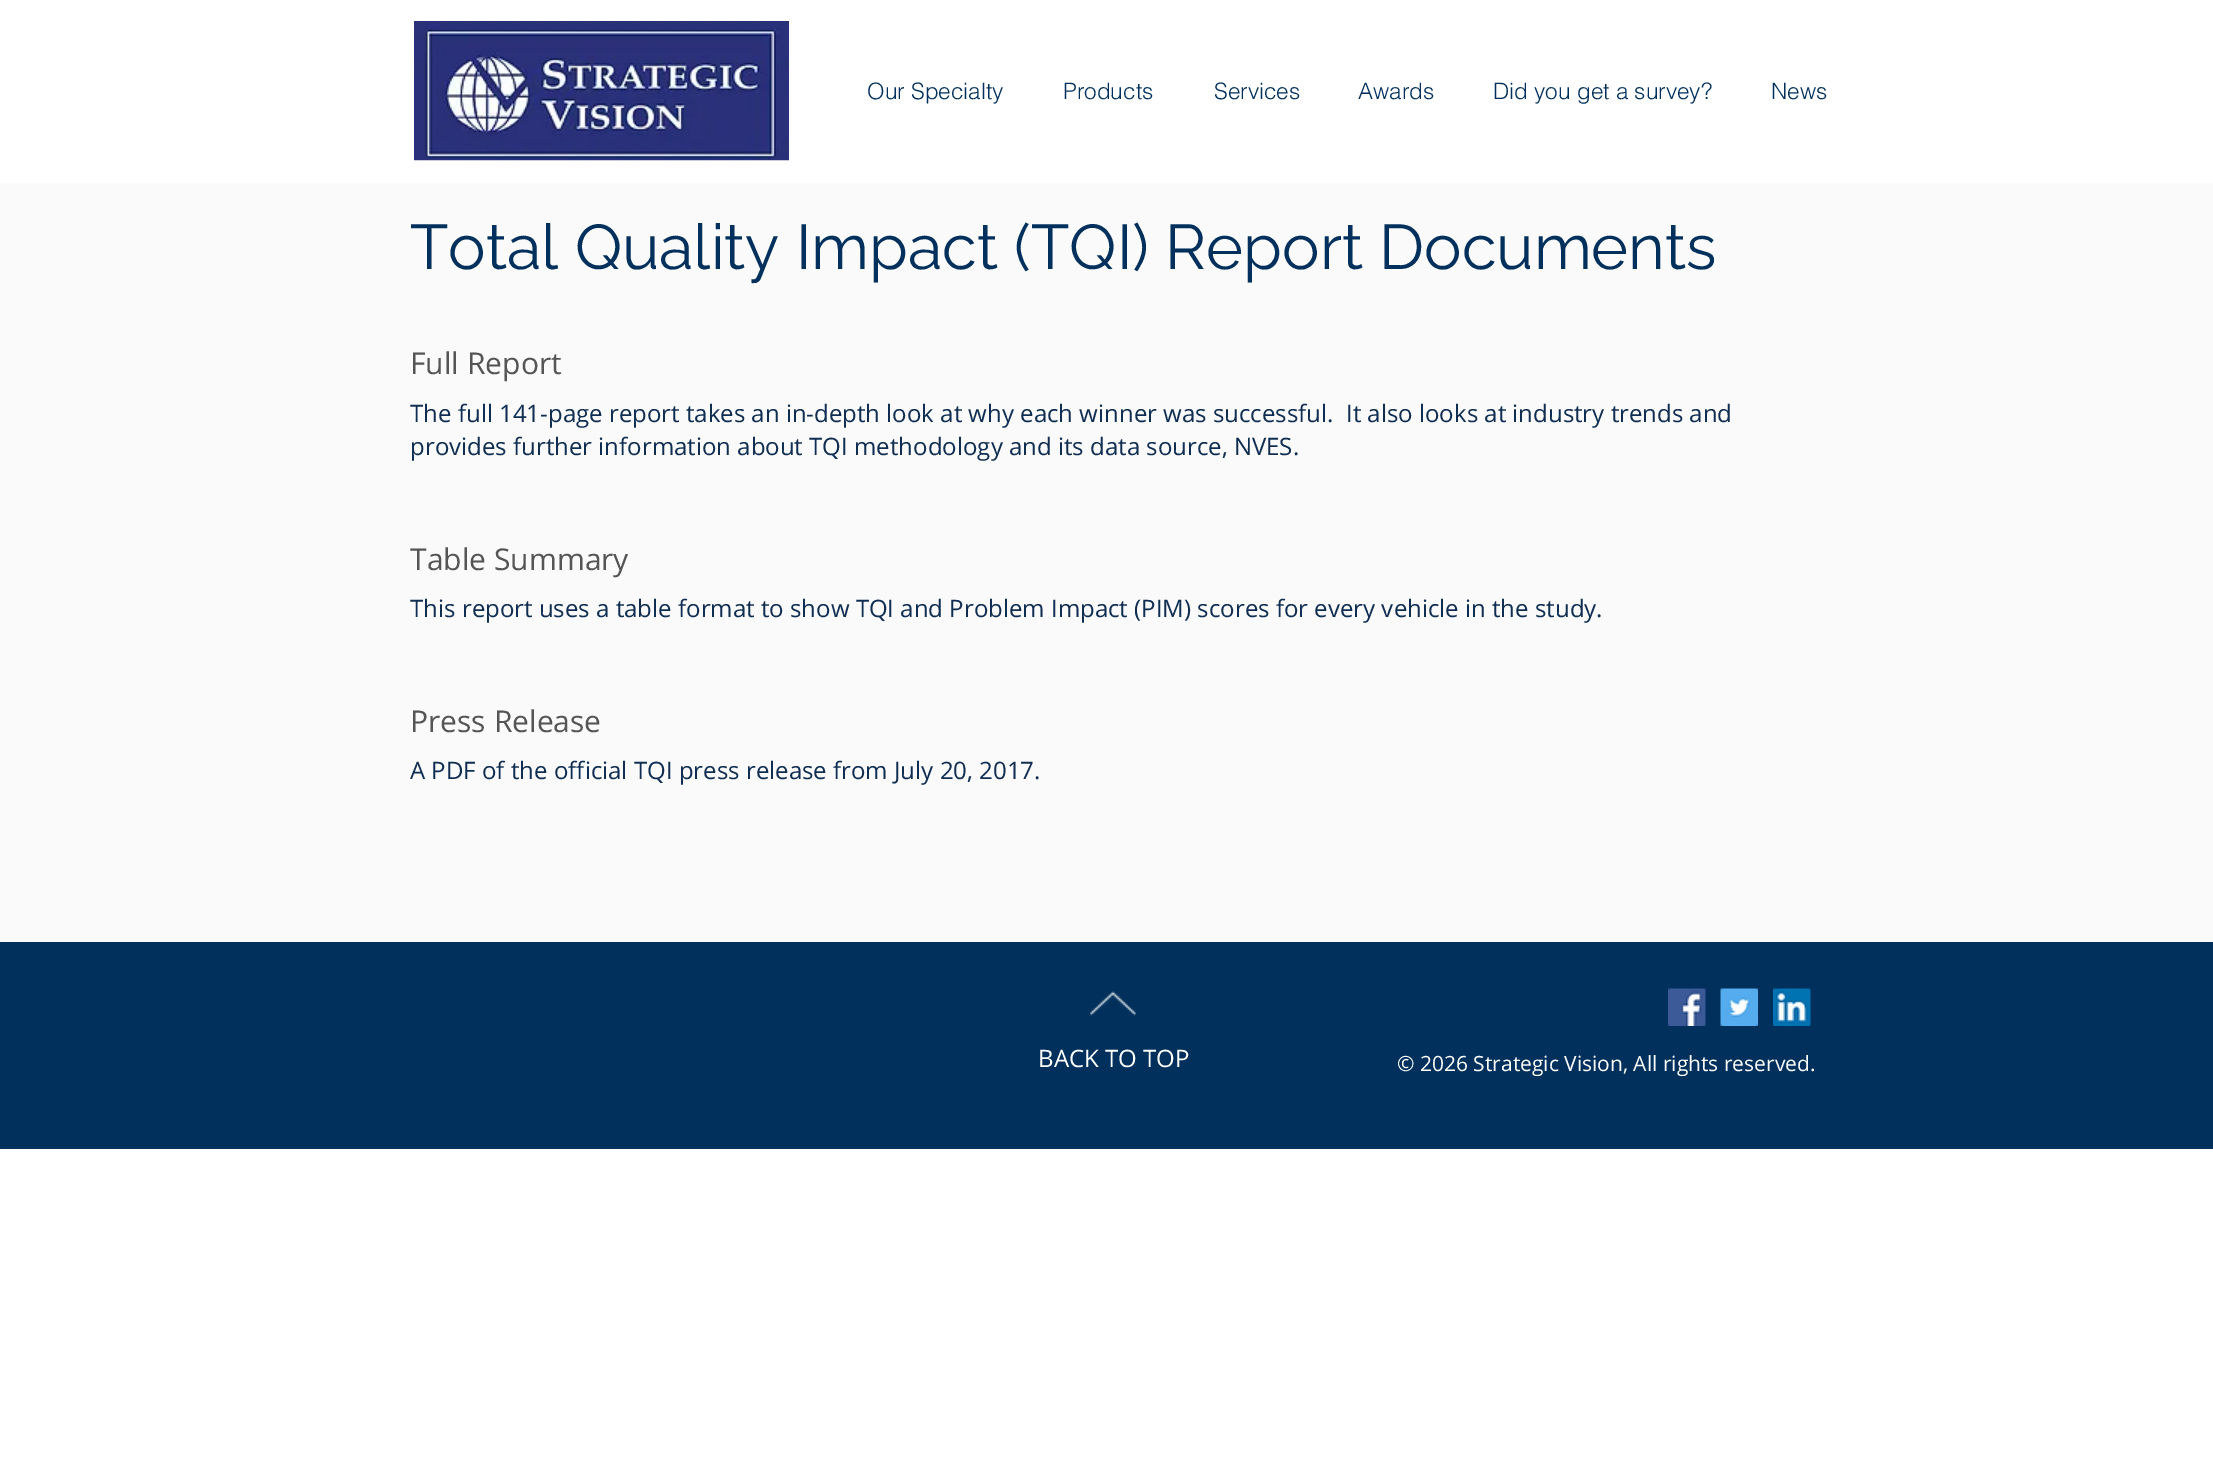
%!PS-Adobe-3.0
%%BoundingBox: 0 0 2213 1471
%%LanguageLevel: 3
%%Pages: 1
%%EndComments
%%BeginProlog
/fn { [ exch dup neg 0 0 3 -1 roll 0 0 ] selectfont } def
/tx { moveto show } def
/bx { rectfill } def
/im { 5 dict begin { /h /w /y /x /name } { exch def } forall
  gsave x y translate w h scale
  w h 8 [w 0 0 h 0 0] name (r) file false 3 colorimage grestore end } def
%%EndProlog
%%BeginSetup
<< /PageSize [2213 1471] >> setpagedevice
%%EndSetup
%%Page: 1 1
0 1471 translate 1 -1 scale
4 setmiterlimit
1 setgray
0 0 2213 1471 bx
(image0.raw) 414 21 375 140 im
/helvetica-Light 22.5 fn
0 0.188 0.357 setrgbcolor
(Our Specialty) 867 99 tx
(Products) 1063 99 tx
(Services) 1214 99 tx
(Awards) 1358 99 tx
(Did you get a survey?) 1493 99 tx
(News) 1771 99 tx
0.98 setgray
0 183 2213 759 bx
/Raleway-Regular 63 fn
0 0.188 0.357 setrgbcolor
(Total Quality Impact \(TQI\) Report Documents) 410 269 tx
/OpenSans-Regular 30 fn
0.333 setgray
(Full Report) 410 374 tx
/OpenSans-Regular 24 fn
0.063 0.18 0.322 setrgbcolor
(The full 141-page report takes an in-depth look at why each winner was successful.  It also looks at industry trends and) 410 422 tx
(provides further information about TQI methodology and its data source, NVES.) 410 455 tx
/OpenSans-Regular 30 fn
0.333 setgray
(Table Summary) 410 570 tx
/OpenSans-Regular 24 fn
0.063 0.18 0.322 setrgbcolor
(This report uses a table format to show TQI and Problem Impact \(PIM\) scores for every vehicle in the study.) 410 617 tx
/OpenSans-Regular 30 fn
0.333 setgray
(Press Release) 410 732 tx
/OpenSans-Regular 24 fn
0.063 0.18 0.322 setrgbcolor
(A PDF of the official TQI press release from July 20, 2017.) 410 779 tx
0 0.188 0.357 setrgbcolor
0 942 2213 207 bx
(image1.raw) 1090 991 46 25 im
(image2.raw) 1668 988 38 38 im
(image3.raw) 1720 988 38 38 im
(image4.raw) 1773 988 38 38 im
1 setgray
(BACK TO TOP) 1038 1067 tx
/OpenSans-Regular 21 fn
(© 2026 Strategic Vision, All rights reserved.) 1397 1071 tx
showpage
%%EOF
